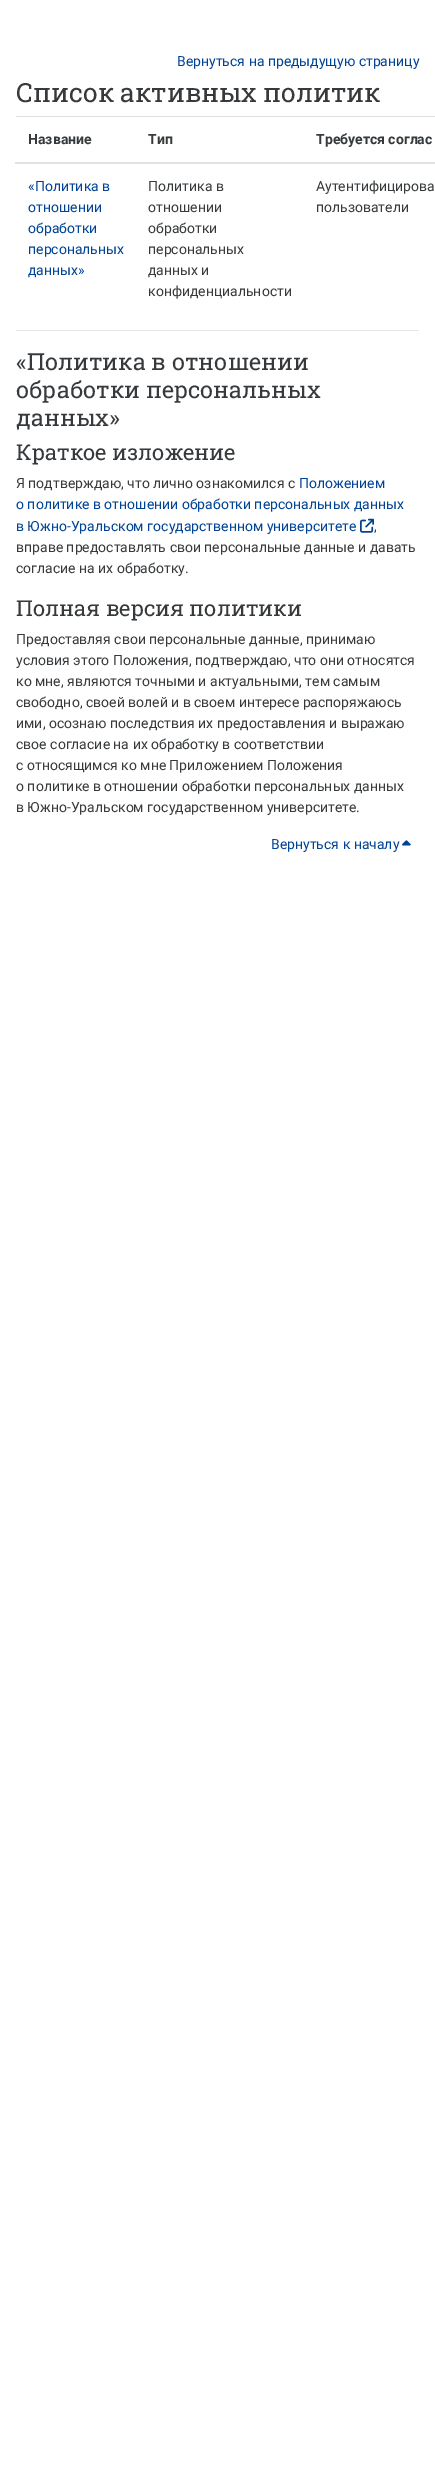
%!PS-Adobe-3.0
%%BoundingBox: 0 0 435 2473
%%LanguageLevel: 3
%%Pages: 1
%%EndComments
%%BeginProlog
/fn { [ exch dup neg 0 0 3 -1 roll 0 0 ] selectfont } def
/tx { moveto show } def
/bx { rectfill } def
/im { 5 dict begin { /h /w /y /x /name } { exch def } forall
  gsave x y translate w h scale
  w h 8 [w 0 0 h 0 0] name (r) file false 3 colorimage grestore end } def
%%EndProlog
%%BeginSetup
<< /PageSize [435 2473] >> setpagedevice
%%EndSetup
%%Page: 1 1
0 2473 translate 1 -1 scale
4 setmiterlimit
1 setgray
0 0 435 2473 bx
/Roboto-Regular 14 fn
0 0.263 0.58 setrgbcolor
(Вернуться на предыдущую страницу) 177 66 tx
/RobotoSlab-Regular 26.4 fn
0.216 0.227 0.235 setrgbcolor
(Список активных политик) 16 102 tx
/Roboto-Bold 14 fn
(Название) 28 144 tx
(Тип) 148 144 tx
0.871 0.886 0.902 setrgbcolor
16 116 419 1 bx
15 162 420 2 bx
0.216 0.227 0.235 setrgbcolor
(Требуется соглас) 316 144 tx
/Roboto-Regular 14 fn
0 0.263 0.58 setrgbcolor
(«Политика в) 28 191 tx
(отношении) 28 212 tx
(обработки) 28 233 tx
(персональных) 28 254 tx
(данных») 28 275 tx
0.216 0.227 0.235 setrgbcolor
(Политика в) 148 191 tx
(отношении) 148 212 tx
(обработки) 148 233 tx
(персональных) 148 254 tx
(данных и) 148 275 tx
(конфиденциальности) 148 296 tx
(Аутентифицирова) 316 191 tx
(пользователи) 316 212 tx
0.902 setgray
16 330 403 1 bx
/RobotoSlab-Regular 23.4 fn
0.216 0.227 0.235 setrgbcolor
(«Политика в отношении) 16 370 tx
(обработки персональных) 16 398 tx
(данных») 16 426 tx
/RobotoSlab-Regular 21.9 fn
(Краткое изложение) 16 460 tx
/Roboto-Regular 14 fn
(Я подтверждаю, что лично ознакомился с) 16 488 tx
0 0.263 0.58 setrgbcolor
(Положением) 299 488 tx
(о политике в отношении обработки персональных данных) 16 509 tx
(в Южно-Уральском государственном университете) 16 531 tx
(image0.raw) 360 518 14 15 im
0.216 0.227 0.235 setrgbcolor
(,) 374 531 tx
(вправе предоставлять свои персональные данные и давать) 16 552 tx
(согласие на их обработку.) 16 573 tx
/RobotoSlab-Regular 21.9 fn
(Полная версия политики) 16 616 tx
/Roboto-Regular 14 fn
(Предоставляя свои персональные данные, принимаю) 16 644 tx
(условия этого Положения, подтверждаю, что они относятся) 16 665 tx
(ко мне, являются точными и актуальными, тем самым) 16 686 tx
(свободно, своей волей и в своем интересе распоряжаюсь) 16 707 tx
(ими, осознаю последствия их предоставления и выражаю) 16 728 tx
(свое согласие на их обработку в соответствии) 16 749 tx
(с относящимся ко мне Приложением Положения) 16 770 tx
(о политике в отношении обработки персональных данных) 16 791 tx
(в Южно-Уральском государственном университете.) 16 812 tx
0 0.263 0.58 setrgbcolor
(Вернуться к началу) 271 849 tx
(image1.raw) 402 840 9 6 im
showpage
%%EOF
